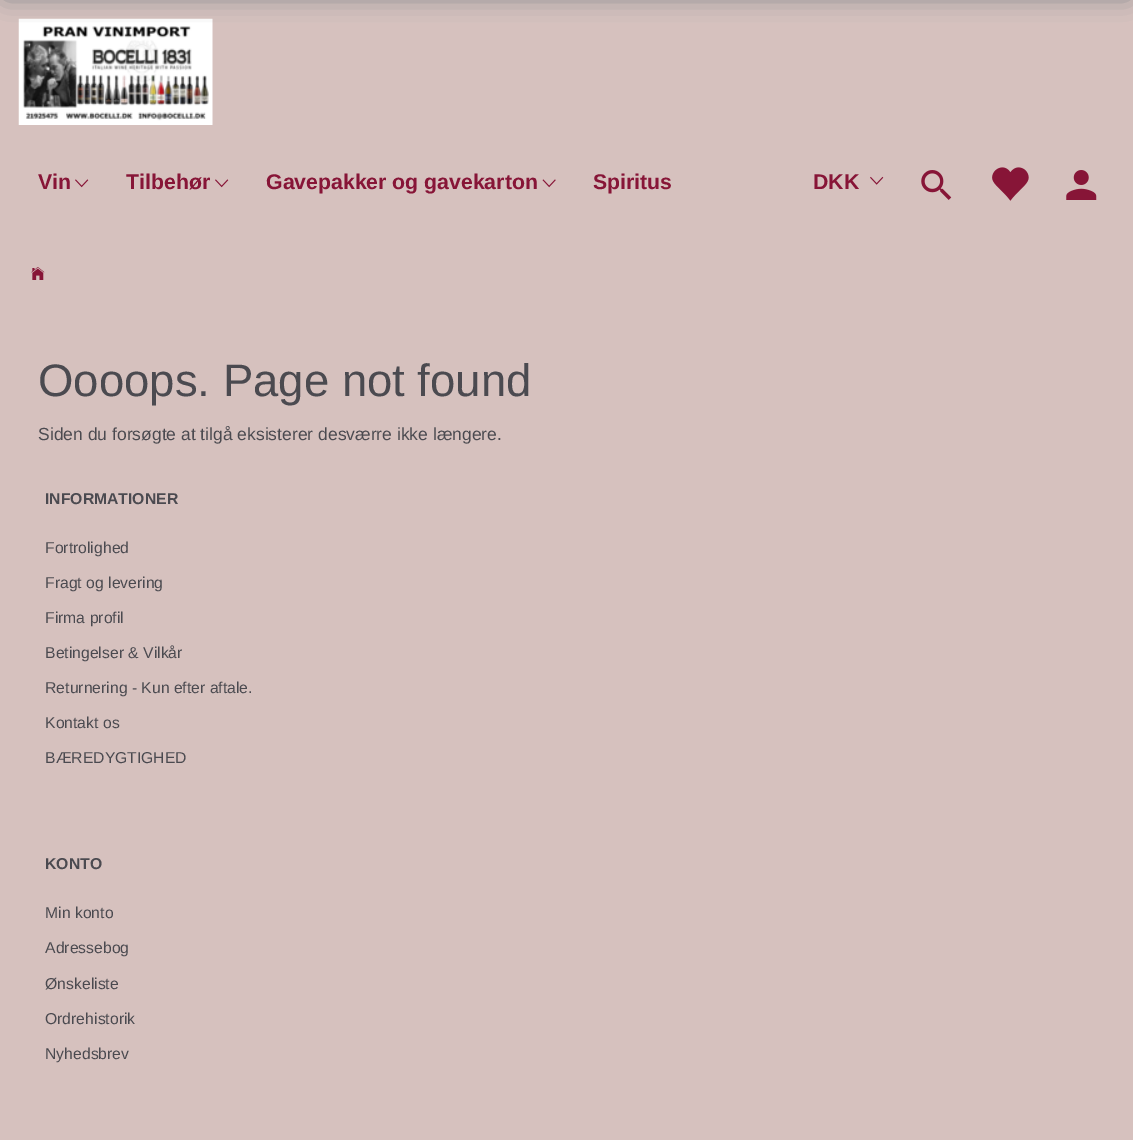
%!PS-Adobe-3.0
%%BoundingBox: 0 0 1133 1140
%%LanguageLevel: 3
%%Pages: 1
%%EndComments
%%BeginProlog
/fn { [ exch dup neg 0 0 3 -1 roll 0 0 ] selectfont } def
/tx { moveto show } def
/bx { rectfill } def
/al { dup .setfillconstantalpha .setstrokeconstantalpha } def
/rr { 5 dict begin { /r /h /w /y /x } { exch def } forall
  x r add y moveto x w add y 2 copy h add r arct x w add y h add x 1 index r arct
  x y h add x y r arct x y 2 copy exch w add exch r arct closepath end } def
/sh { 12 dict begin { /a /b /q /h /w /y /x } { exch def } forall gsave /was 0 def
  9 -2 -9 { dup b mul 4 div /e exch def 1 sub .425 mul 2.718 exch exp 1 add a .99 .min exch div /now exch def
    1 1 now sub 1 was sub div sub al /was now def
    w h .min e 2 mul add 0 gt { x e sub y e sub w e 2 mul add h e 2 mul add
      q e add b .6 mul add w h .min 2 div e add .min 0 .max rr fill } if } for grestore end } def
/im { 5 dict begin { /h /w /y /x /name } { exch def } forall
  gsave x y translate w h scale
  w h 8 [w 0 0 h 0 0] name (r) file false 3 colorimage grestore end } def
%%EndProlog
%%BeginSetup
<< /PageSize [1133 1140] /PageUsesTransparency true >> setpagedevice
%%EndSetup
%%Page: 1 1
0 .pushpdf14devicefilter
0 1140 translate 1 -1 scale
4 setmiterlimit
0.839 0.757 0.745 setrgbcolor
0 0 1133 1140 bx
(image0.raw) 18 18 195 107 im
0.58 setgray
6 -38 1122 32 0 12.5 1 sh
6 -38 1122 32 0 12.5 1 sh
/LiberationSans-Bold 21.25 fn
0.529 0.082 0.216 setrgbcolor
(Vin) 38 189 tx
(image1.raw) 75 179 14 9 im
(Tilbehør) 126 189 tx
(image1.raw) 215 179 14 9 im
(Gavepakker og gavekarton) 266 189 tx
(image2.raw) 542 179 14 9 im
(Spiritus) 593 189 tx
(DKK) 813 189 tx
(image3.raw) 870 176 14 9 im
(image4.raw) 921 170 31 30 im
(image5.raw) 992 167 37 34 im
(image6.raw) 1066 170 31 30 im
(image7.raw) 31 267 14 13 im
/LiberationSans-Regular 45.5 fn
0.294 0.29 0.314 setrgbcolor
(Oooops. Page not found) 38 396 tx
/LiberationSans-Regular 17.5 fn
(Siden du forsøgte at tilgå eksisterer desværre ikke længere.) 38 440 tx
/LiberationSans-Bold 15.75 fn
(INFORMATIONER) 45 504 tx
/LiberationSans-Regular 15.75 fn
(Fortrolighed) 45 553 tx
(Fragt og levering) 45 588 tx
(Firma profil) 45 623 tx
(Betingelser & Vilkår) 45 658 tx
(Returnering - Kun efter aftale.) 45 693 tx
(Kontakt os) 45 728 tx
(BÆREDYGTIGHED) 45 763 tx
/LiberationSans-Bold 15.75 fn
(KONTO) 45 869 tx
/LiberationSans-Regular 15.75 fn
(Min konto) 45 918 tx
(Adressebog) 45 953 tx
(Ønskeliste) 45 989 tx
(Ordrehistorik) 45 1024 tx
(Nyhedsbrev) 45 1059 tx
.poppdf14devicefilter showpage
%%EOF
